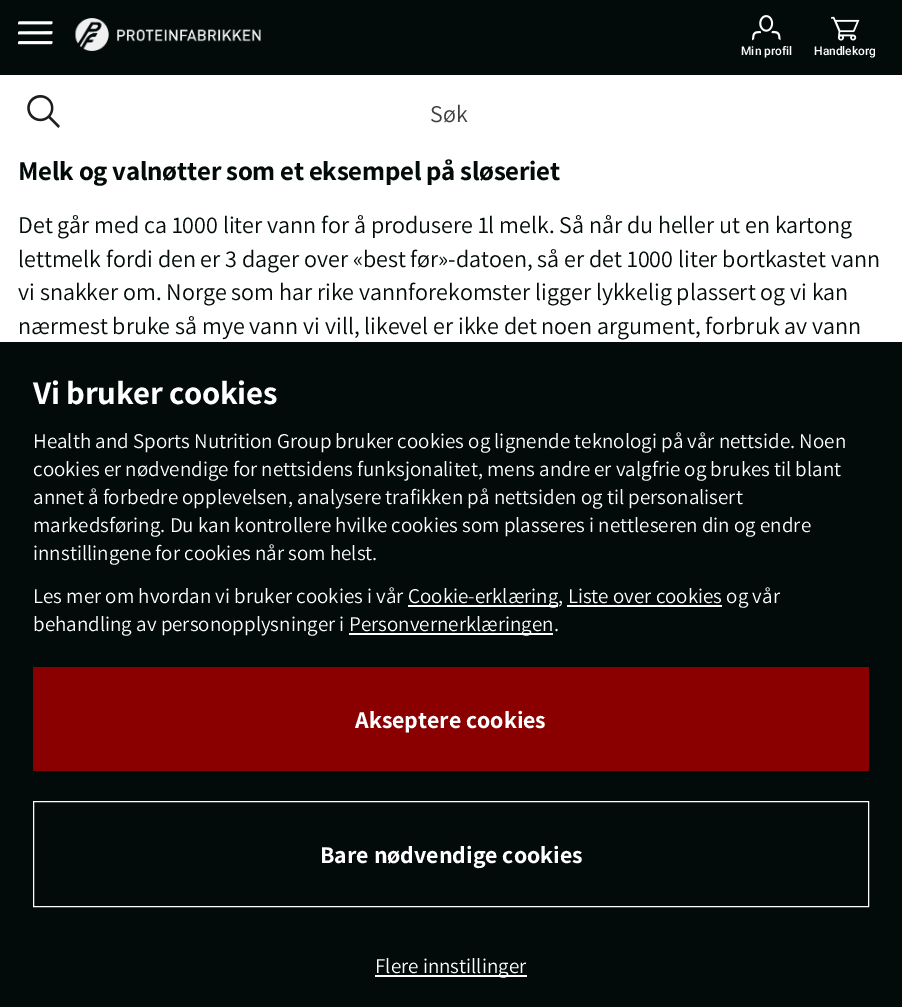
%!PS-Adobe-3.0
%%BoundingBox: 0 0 902 1007
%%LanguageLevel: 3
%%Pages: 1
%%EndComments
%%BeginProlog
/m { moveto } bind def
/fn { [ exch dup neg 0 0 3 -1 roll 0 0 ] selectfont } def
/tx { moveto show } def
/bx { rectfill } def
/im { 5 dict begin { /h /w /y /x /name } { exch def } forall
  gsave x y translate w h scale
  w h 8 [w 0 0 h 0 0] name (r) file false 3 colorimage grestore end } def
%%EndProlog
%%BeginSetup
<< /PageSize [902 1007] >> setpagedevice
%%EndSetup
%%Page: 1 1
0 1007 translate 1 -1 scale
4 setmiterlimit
1 setgray
0 0 902 1007 bx
0.008 0.039 0.039 setrgbcolor
0 0 902 75 bx
(image0.raw) 18 21 35 24 im
(image1.raw) 75 18 186 33 im
(image2.raw) 752 15 29 26 im
/Roboto-Medium 12 fn
1 setgray
(Min profil) 741 55 tx
(image3.raw) 831 16 29 25 im
(Handlekorg) 814 55 tx
(image4.raw) 27 95 33 33 im
/Assistant-Regular 24 fn
0.243 setgray
(Søk) 430 122 tx
/Assistant-Bold 27 fn
0.008 0.039 0.039 setrgbcolor
18 180 m -0.25 0 (Melk og valnøtter som et eksempel på sløseriet) ashow
/Assistant-Regular 24 fn
(Det går med ca 1000 liter vann for å produsere 1l melk. Så når du heller ut en kartong) 18 233 tx
(lettmelk fordi den er 3 dager over «best før»-datoen, så er det 1000 liter bortkastet vann) 18 267 tx
(vi snakker om. Norge som har rike vannforekomster ligger lykkelig plassert og vi kan) 18 300 tx
(nærmest bruke så mye vann vi vill, likevel er ikke det noen argument, forbruk av vann) 18 334 tx
0 342 902 665 bx
/Assistant-Bold 33 fn
1 setgray
33 404 m -0.25 0 (Vi bruker cookies) ashow
/Assistant-Regular 21 fn
(Health and Sports Nutrition Group bruker cookies og lignende teknologi på vår nettside. Noen) 33 448 tx
(cookies er nødvendige for nettsidens funksjonalitet, mens andre er valgfrie og brukes til blant) 33 476 tx
(annet å forbedre opplevelsen, analysere trafikken på nettsiden og til personalisert) 33 504 tx
(markedsføring. Du kan kontrollere hvilke cookies som plasseres i nettleseren din og endre) 33 532 tx
(innstillingene for cookies når som helst.) 33 560 tx
(Les mer om hvordan vi bruker cookies i vår) 33 603 tx
408 605 150 2 bx
(Cookie-erklæring, Liste over cookies og vår) 408 603 tx
567 605 155 2 bx
(behandling av personopplysninger i) 33 631 tx
349 633 204 2 bx
(Personvernerklæringen.) 349 631 tx
0.541 0 0 setrgbcolor
33 667 836 104 bx
/Assistant-Bold 24 fn
1 setgray
(Akseptere cookies) 355 728 tx
33.5 801.5 835 105 rectstroke
(Bare nødvendige cookies) 320 863 tx
375 975 152 2 bx
/Assistant-Regular 21 fn
(Flere innstillinger) 375 973 tx
showpage
%%EOF
